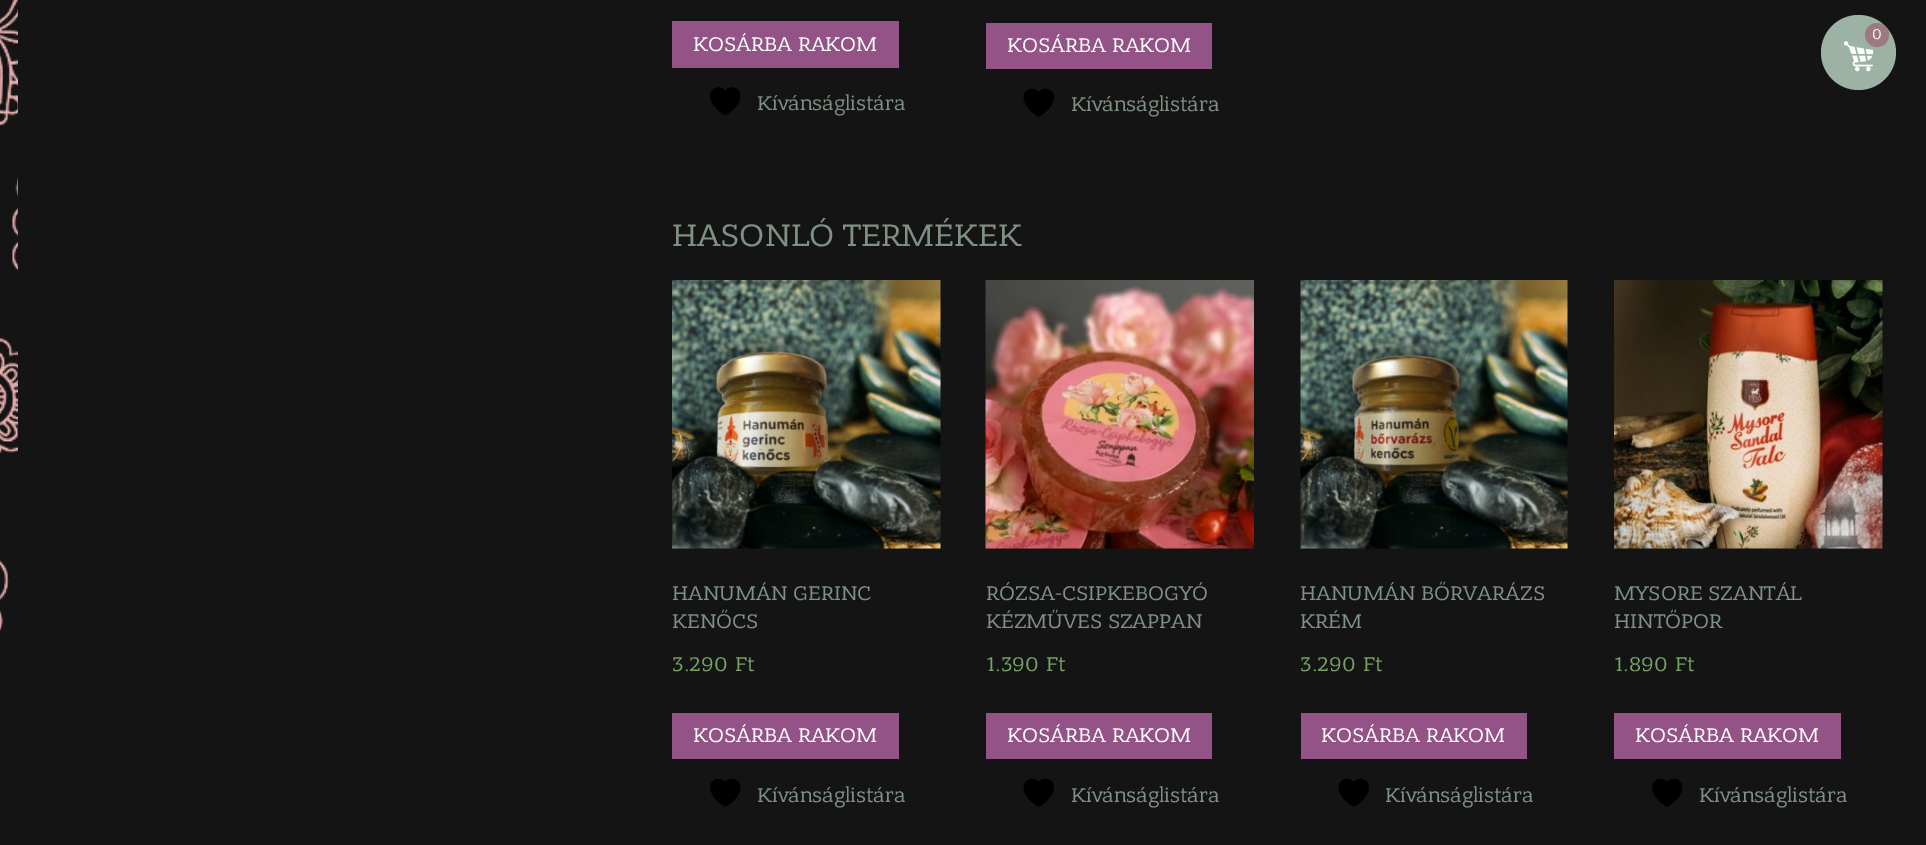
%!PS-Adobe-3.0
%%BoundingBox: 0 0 1926 845
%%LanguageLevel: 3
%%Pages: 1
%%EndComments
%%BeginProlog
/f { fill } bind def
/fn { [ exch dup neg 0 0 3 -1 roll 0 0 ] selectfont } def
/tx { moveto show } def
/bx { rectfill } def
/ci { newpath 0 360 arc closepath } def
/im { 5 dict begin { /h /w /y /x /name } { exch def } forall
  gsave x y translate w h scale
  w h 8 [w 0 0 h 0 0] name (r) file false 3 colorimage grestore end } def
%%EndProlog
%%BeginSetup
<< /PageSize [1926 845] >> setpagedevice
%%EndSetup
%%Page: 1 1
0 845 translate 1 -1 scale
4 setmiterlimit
0.078 setgray
0 0 1926 845 bx
(image0.raw) 0 0 18 631 im
0.576 0.325 0.525 setrgbcolor
672 21 227 47 bx
/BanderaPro-Regular 21 fn
1 setgray
(KOSÁRBA RAKOM) 693 51 tx
(image1.raw) 710 87 31 29 im
0.494 0.569 0.518 setrgbcolor
(Kívánságlistára) 757 110 tx
0.576 0.325 0.525 setrgbcolor
986 23 226 46 bx
1 setgray
(KOSÁRBA RAKOM) 1007 52 tx
(image2.raw) 1023 88 31 29 im
0.494 0.569 0.518 setrgbcolor
(Kívánságlistára) 1071 111 tx
/BanderaPro-Regular 33 fn
(HASONLÓ TERMÉKEK) 672 246 tx
(image3.raw) 672 280 269 269 im
/BanderaPro-Regular 21 fn
(HANUMÁN GERINC) 672 600 tx
(KENŐCS) 672 628 tx
0.467 0.643 0.392 setrgbcolor
(3.290) 672 671 tx
(Ft) 735 671 tx
0.576 0.325 0.525 setrgbcolor
672 713 227 46 bx
1 setgray
(KOSÁRBA RAKOM) 693 742 tx
(image4.raw) 710 778 31 29 im
0.494 0.569 0.518 setrgbcolor
(Kívánságlistára) 757 802 tx
(image5.raw) 985 280 269 269 im
(RÓZSA-CSIPKEBOGYÓ) 986 600 tx
(KÉZMŰVES SZAPPAN) 986 628 tx
0.467 0.643 0.392 setrgbcolor
(1.390) 986 671 tx
(Ft) 1046 671 tx
0.576 0.325 0.525 setrgbcolor
986 713 226 46 bx
1 setgray
(KOSÁRBA RAKOM) 1007 742 tx
(image2.raw) 1023 778 31 29 im
0.494 0.569 0.518 setrgbcolor
(Kívánságlistára) 1071 802 tx
(image6.raw) 1300 280 268 269 im
(HANUMÁN BŐRVARÁZS) 1300 600 tx
(KRÉM) 1300 628 tx
0.467 0.643 0.392 setrgbcolor
(3.290) 1300 671 tx
(Ft) 1363 671 tx
0.576 0.325 0.525 setrgbcolor
1301 713 226 46 bx
1 setgray
(KOSÁRBA RAKOM) 1321 742 tx
(image2.raw) 1338 778 31 29 im
0.494 0.569 0.518 setrgbcolor
(Kívánságlistára) 1385 802 tx
(image7.raw) 1614 280 269 269 im
(MYSORE SZANTÁL) 1614 600 tx
(HINTŐPOR) 1614 628 tx
0.467 0.643 0.392 setrgbcolor
(1.890) 1614 671 tx
(Ft) 1675 671 tx
0.576 0.325 0.525 setrgbcolor
1614 713 227 46 bx
1 setgray
(KOSÁRBA RAKOM) 1635 742 tx
(image4.raw) 1652 778 31 29 im
0.494 0.569 0.518 setrgbcolor
(Kívánságlistára) 1699 802 tx
0.612 0.698 0.647 setrgbcolor
1858.5 52.5 37.5 ci f
(image8.raw) 1843 41 31 31 im
0.616 0.475 0.51 setrgbcolor
1877 35 12 ci f
/BanderaPro-Regular 15 fn
1 setgray
(0) 1872 39 tx
showpage
%%EOF
